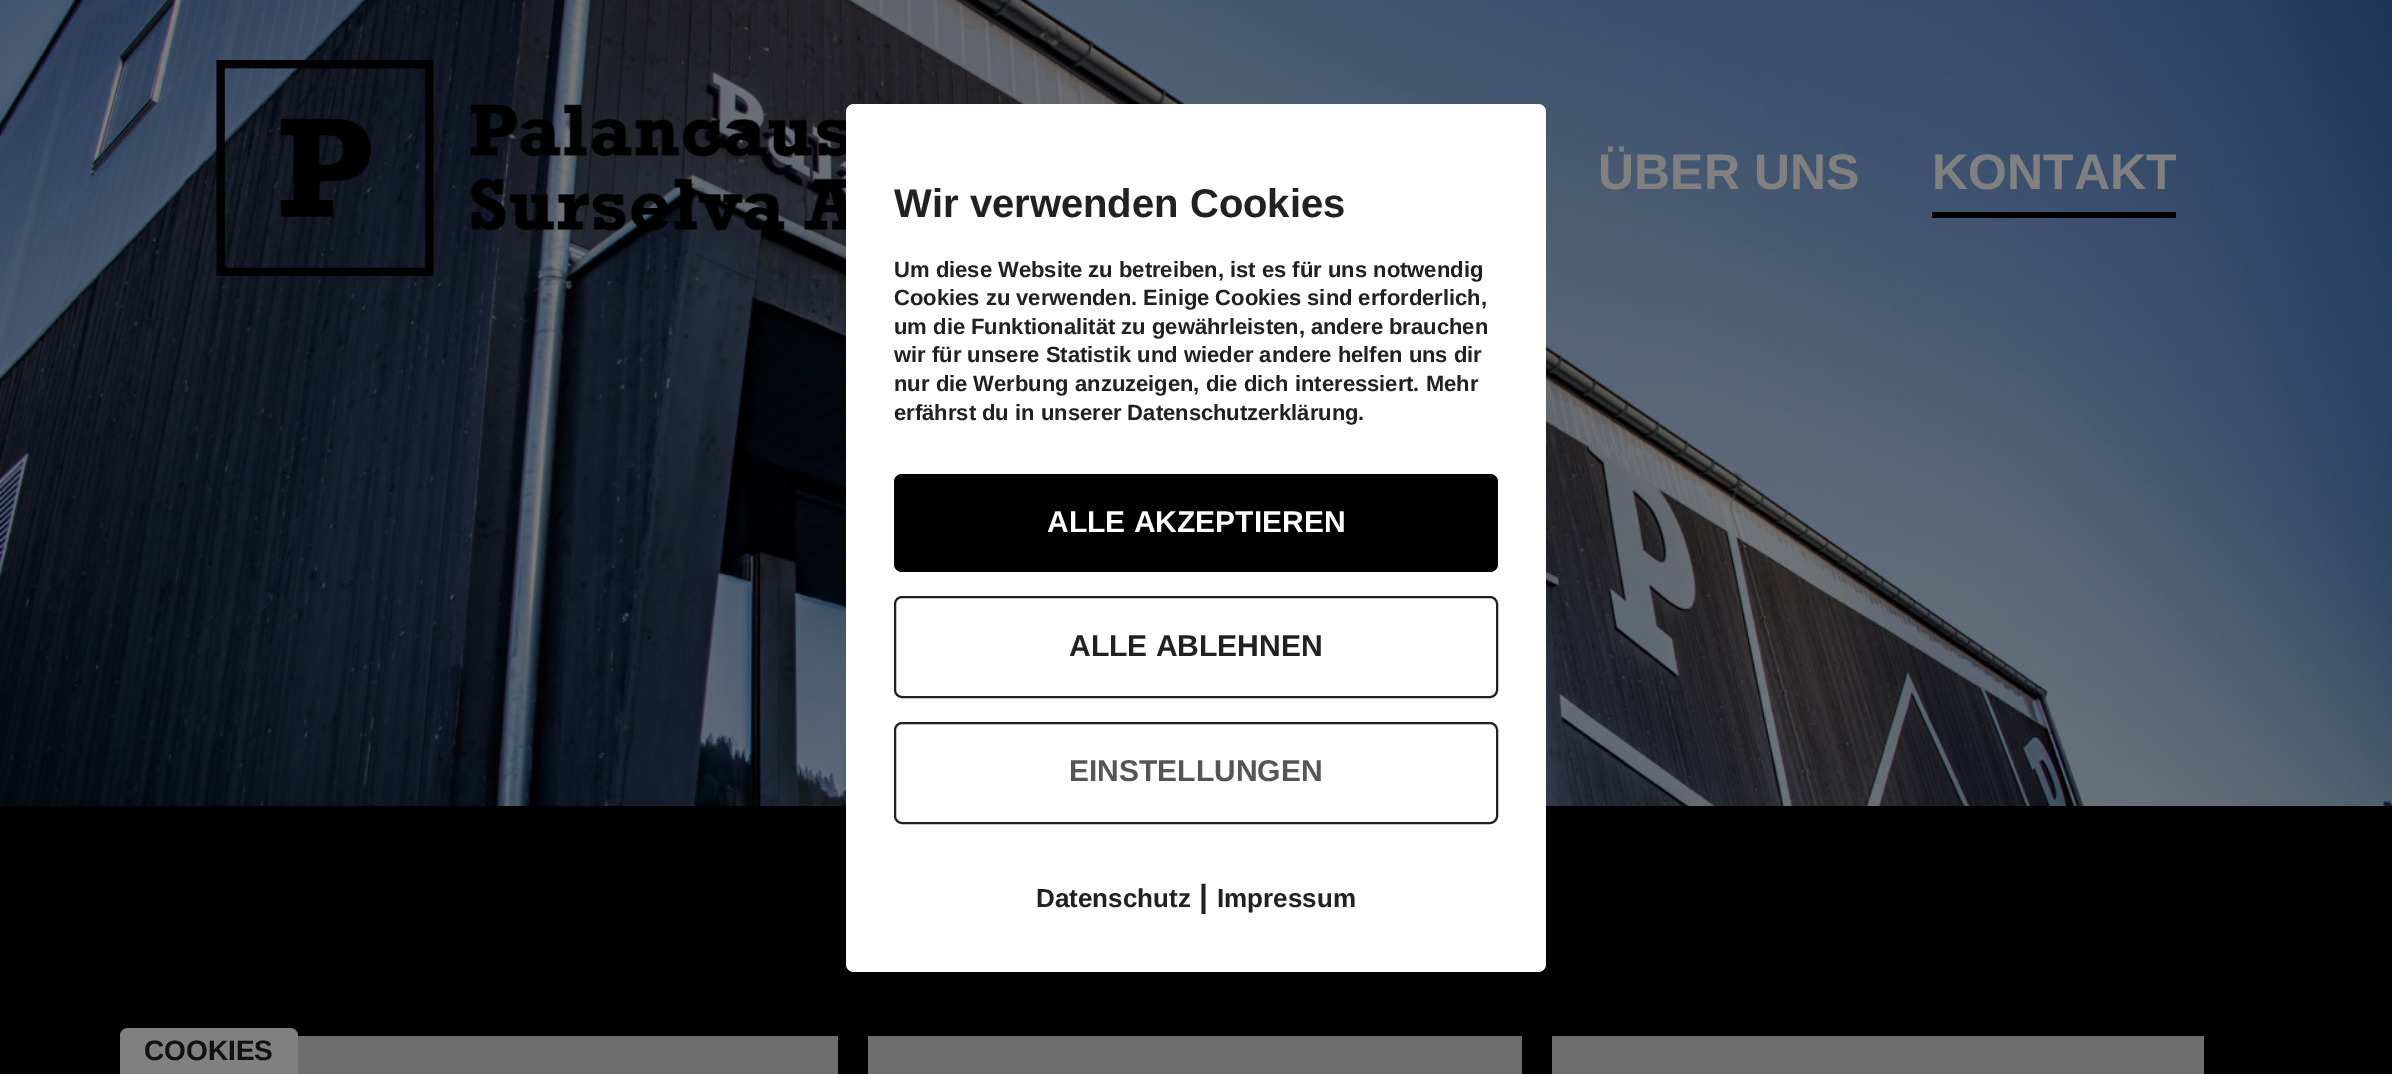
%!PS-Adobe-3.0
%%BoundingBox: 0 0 2392 1074
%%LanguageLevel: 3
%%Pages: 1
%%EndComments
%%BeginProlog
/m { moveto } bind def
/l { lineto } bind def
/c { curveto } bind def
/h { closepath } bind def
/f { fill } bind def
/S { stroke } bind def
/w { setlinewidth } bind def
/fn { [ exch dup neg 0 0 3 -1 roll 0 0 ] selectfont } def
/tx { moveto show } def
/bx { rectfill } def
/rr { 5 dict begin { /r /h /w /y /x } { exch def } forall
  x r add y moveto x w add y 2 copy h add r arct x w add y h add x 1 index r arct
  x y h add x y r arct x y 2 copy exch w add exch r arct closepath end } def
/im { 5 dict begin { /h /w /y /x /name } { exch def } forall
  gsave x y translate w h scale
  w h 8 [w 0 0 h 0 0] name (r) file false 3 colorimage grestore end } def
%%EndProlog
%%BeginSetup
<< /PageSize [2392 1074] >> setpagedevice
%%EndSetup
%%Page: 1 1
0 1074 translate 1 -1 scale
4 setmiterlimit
1 setgray
0 0 2392 1074 bx
(image0.raw) 0 0 2392 806 im
0 setgray
0 806 2392 268 bx
0.427 setgray
298 1036 540 38 bx
868 1036 654 38 bx
1552 1036 652 38 bx
(image1.raw) 216 60 630 216 im
/LiberationSans-Bold 50 fn
0.502 setgray
(ÜBER UNS) 1598 189 tx
(KONTAKT) 1932 189 tx
0 setgray
1932 212 244 6 bx
1 setgray
846 104 700 868 8 rr f
/LiberationSans-Bold 40 fn
0.129 setgray
(Wir verwenden Cookies) 894 217 tx
/LiberationSans-Bold 22 fn
(Um diese Website zu betreiben, ist es für uns notwendig) 894 277 tx
(Cookies zu verwenden. Einige Cookies sind erforderlich,) 894 305 tx
(um die Funktionalität zu gewährleisten, andere brauchen) 894 334 tx
(wir für unsere Statistik und wieder andere helfen uns dir) 894 362 tx
(nur die Werbung anzuzeigen, die dich interessiert. Mehr) 894 391 tx
(erfährst du in unserer Datenschutzerklärung.) 894 420 tx
0 setgray
894 474 604 98 8 rr f
/LiberationSans-Bold 30 fn
1 setgray
(ALLE AKZEPTIEREN) 1047 532 tx
0.129 setgray
2 w
895 597 602 100 7 rr S
(ALLE ABLEHNEN) 1069 656 tx
895 723 602 100 7 rr S
0.333 setgray
(EINSTELLUNGEN) 1069 781 tx
/LiberationSans-Bold 26 fn
0.129 setgray
(Datenschutz) 1036 907 tx
/LiberationSans-Bold 32 fn
(|) 1199 907 tx
/LiberationSans-Bold 26 fn
(Impressum) 1217 907 tx
0.502 setgray
128 1028 m 290 1028 l 294.5 1028 298 1031.5 298 1036 c 298 1074 l 120 1074 l 120 1036 l 120 1031.5 123.5 1028 128 1028 c h f
/LiberationSans-Bold 28 fn
0.067 setgray
(COOKIES) 144 1060 tx
showpage
%%EOF
